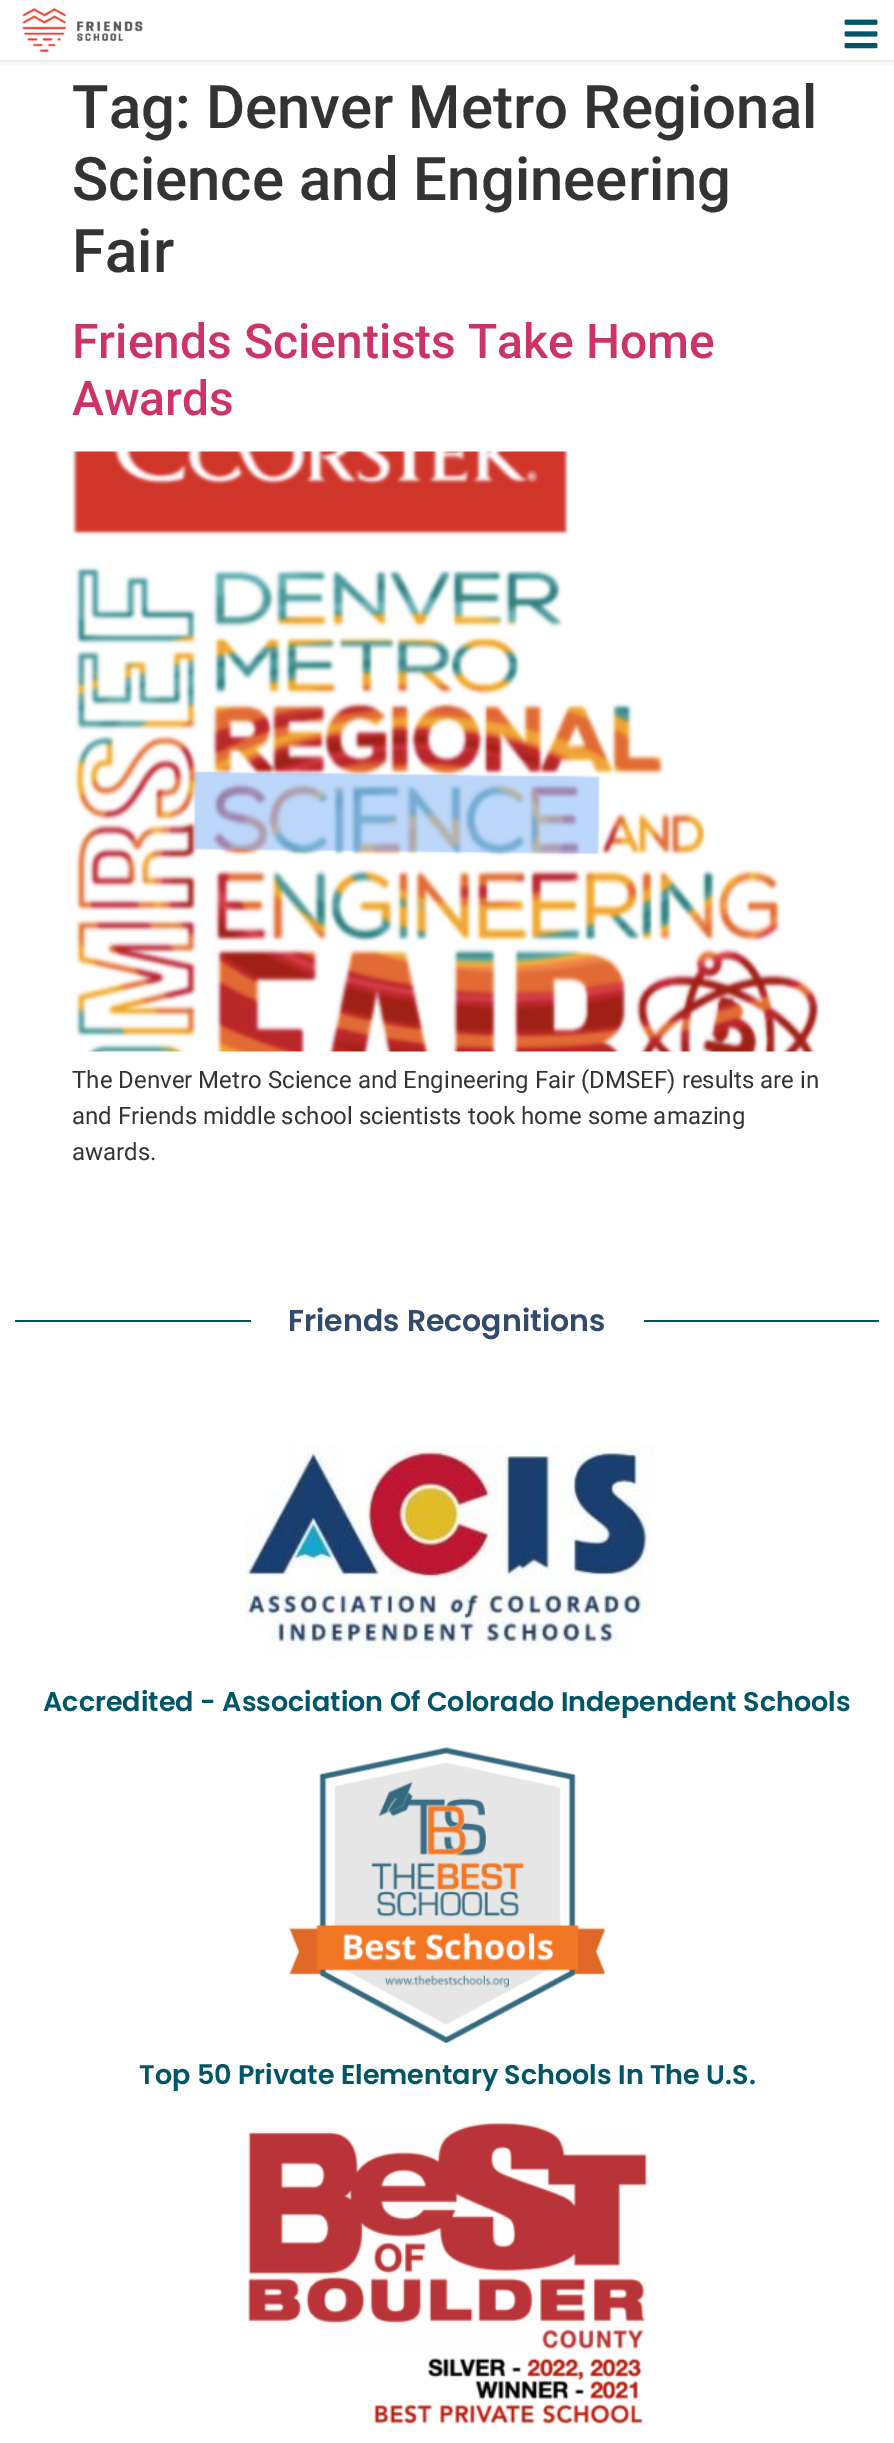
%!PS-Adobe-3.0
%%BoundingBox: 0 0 894 2443
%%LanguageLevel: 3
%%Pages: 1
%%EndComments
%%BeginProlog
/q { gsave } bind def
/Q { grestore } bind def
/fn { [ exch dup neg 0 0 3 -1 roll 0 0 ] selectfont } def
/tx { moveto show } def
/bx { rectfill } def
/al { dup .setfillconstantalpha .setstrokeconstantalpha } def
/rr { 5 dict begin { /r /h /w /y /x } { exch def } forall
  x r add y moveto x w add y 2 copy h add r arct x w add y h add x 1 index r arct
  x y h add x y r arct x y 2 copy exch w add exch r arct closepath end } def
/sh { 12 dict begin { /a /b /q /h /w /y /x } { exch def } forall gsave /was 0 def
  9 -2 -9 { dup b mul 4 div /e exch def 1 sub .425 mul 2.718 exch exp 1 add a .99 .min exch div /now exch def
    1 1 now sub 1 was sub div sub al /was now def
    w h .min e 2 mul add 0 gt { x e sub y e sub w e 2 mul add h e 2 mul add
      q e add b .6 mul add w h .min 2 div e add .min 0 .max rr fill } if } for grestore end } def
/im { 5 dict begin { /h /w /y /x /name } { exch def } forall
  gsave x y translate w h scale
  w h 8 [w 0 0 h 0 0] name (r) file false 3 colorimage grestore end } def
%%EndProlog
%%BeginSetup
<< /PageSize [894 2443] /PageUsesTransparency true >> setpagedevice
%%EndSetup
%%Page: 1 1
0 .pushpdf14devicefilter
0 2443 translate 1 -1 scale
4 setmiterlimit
1 setgray
0 0 894 2443 bx
q
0 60 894 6 rectclip
0.506 setgray
0 0 894 60 0 4 0.37 sh
Q
(image0.raw) 22 8 121 45 im
(image1.raw) 844 19 34 30 im
/Roboto-Medium 60 fn
0.2 setgray
(Tag: Denver Metro Regional) 72 128 tx
(Science and Engineering) 72 200 tx
(Fair) 72 272 tx
/Roboto-Medium 48 fn
0.8 0.2 0.4 setrgbcolor
(Friends Scientists Take Home) 72 358 tx
(Awards) 72 415 tx
(image2.raw) 72 451 748 601 im
/Roboto-Regular 24 fn
0.2 setgray
(The Denver Metro Science and Engineering Fair \(DMSEF\) results are in) 72 1088 tx
(and Friends middle school scientists took home some amazing) 72 1124 tx
(awards.) 72 1160 tx
0 0.333 0.404 setrgbcolor
15 1320 236 2 bx
/Poppins-SemiBold 30 fn
0.196 0.29 0.427 setrgbcolor
(Friends Recognitions) 288 1331 tx
0 0.333 0.404 setrgbcolor
644 1320 235 2 bx
(image3.raw) 245 1444 410 217 im
/Poppins-SemiBold 27 fn
(Accredited - Association Of Colorado Independent Schools) 43 1711 tx
(image4.raw) 289 1747 316 296 im
(Top 50 Private Elementary Schools In The U.S.) 139 2084 tx
(image5.raw) 248 2122 399 303 im
.poppdf14devicefilter showpage
%%EOF
